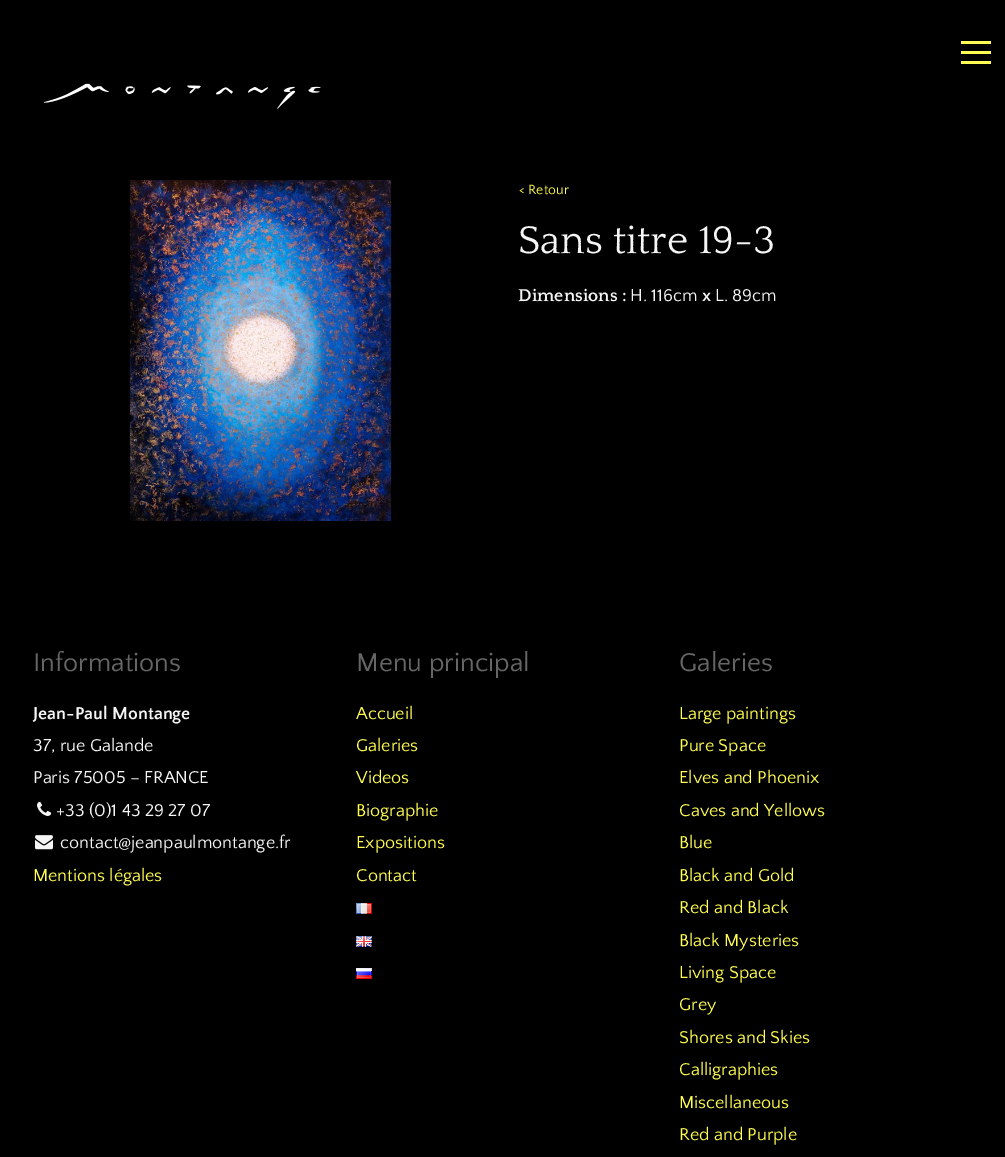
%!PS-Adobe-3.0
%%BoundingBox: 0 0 1005 1157
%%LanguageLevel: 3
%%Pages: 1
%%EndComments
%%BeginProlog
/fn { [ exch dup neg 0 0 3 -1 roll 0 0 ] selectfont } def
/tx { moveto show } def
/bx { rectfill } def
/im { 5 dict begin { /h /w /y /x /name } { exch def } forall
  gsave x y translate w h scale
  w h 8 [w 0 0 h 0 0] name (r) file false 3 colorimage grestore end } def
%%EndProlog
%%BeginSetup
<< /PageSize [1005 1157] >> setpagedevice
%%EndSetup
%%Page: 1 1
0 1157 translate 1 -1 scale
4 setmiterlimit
0 setgray
0 0 1005 1157 bx
1 0.992 0.322 setrgbcolor
961 41 30 3 bx
961 51 30 3 bx
961 61 30 3 bx
(image0.raw) 44 83 277 26 im
(image1.raw) 128 180 269 341 im
/QuattrocentoSans-Regular 14 fn
(< Retour) 519 194 tx
/Quattrocento-Regular 40.5 fn
0.961 setgray
(Sans titre 19-3) 518 253 tx
/Quattrocento-Bold 18 fn
(Dimensions :) 518 301 tx
/QuattrocentoSans-Regular 18 fn
(H. 116cm) 630 301 tx
/QuattrocentoSans-Bold 18 fn
(x) 702 301 tx
/QuattrocentoSans-Regular 18 fn
(L. 89cm) 715 301 tx
/QuattrocentoSans-Regular 27 fn
0.4 setgray
(Informations) 33 671 tx
/QuattrocentoSans-Bold 18 fn
0.961 setgray
(Jean-Paul Montange) 33 719 tx
/QuattrocentoSans-Regular 18 fn
(37, rue Galande) 33 751 tx
(Paris 75005 – FRANCE) 33 783 tx
(image2.raw) 37 801 15 15 im
(+33 \(0\)1 43 29 27 07) 56 816 tx
(image3.raw) 35 835 18 15 im
(contact@jeanpaulmontange.fr) 60 848 tx
1 0.992 0.322 setrgbcolor
(Mentions légales) 33 881 tx
/QuattrocentoSans-Regular 27 fn
0.4 setgray
(Menu principal) 356 671 tx
/QuattrocentoSans-Regular 18 fn
1 0.992 0.322 setrgbcolor
(Accueil) 356 719 tx
(Galeries) 356 751 tx
(Videos) 356 783 tx
(Biographie) 356 816 tx
(Expositions) 356 848 tx
(Contact) 356 881 tx
(image4.raw) 356 903 16 11 im
(image5.raw) 356 936 16 11 im
(image6.raw) 356 968 16 11 im
/QuattrocentoSans-Regular 27 fn
0.4 setgray
(Galeries) 679 671 tx
/QuattrocentoSans-Regular 18 fn
1 0.992 0.322 setrgbcolor
(Large paintings) 679 719 tx
(Pure Space) 679 751 tx
(Elves and Phoenix) 679 783 tx
(Caves and Yellows) 679 816 tx
(Blue) 679 848 tx
(Black and Gold) 679 881 tx
(Red and Black) 679 913 tx
(Black Mysteries) 679 946 tx
(Living Space) 679 978 tx
(Grey) 679 1010 tx
(Shores and Skies) 679 1043 tx
(Calligraphies) 679 1075 tx
(Miscellaneous) 679 1108 tx
(Red and Purple) 679 1140 tx
showpage
%%EOF
